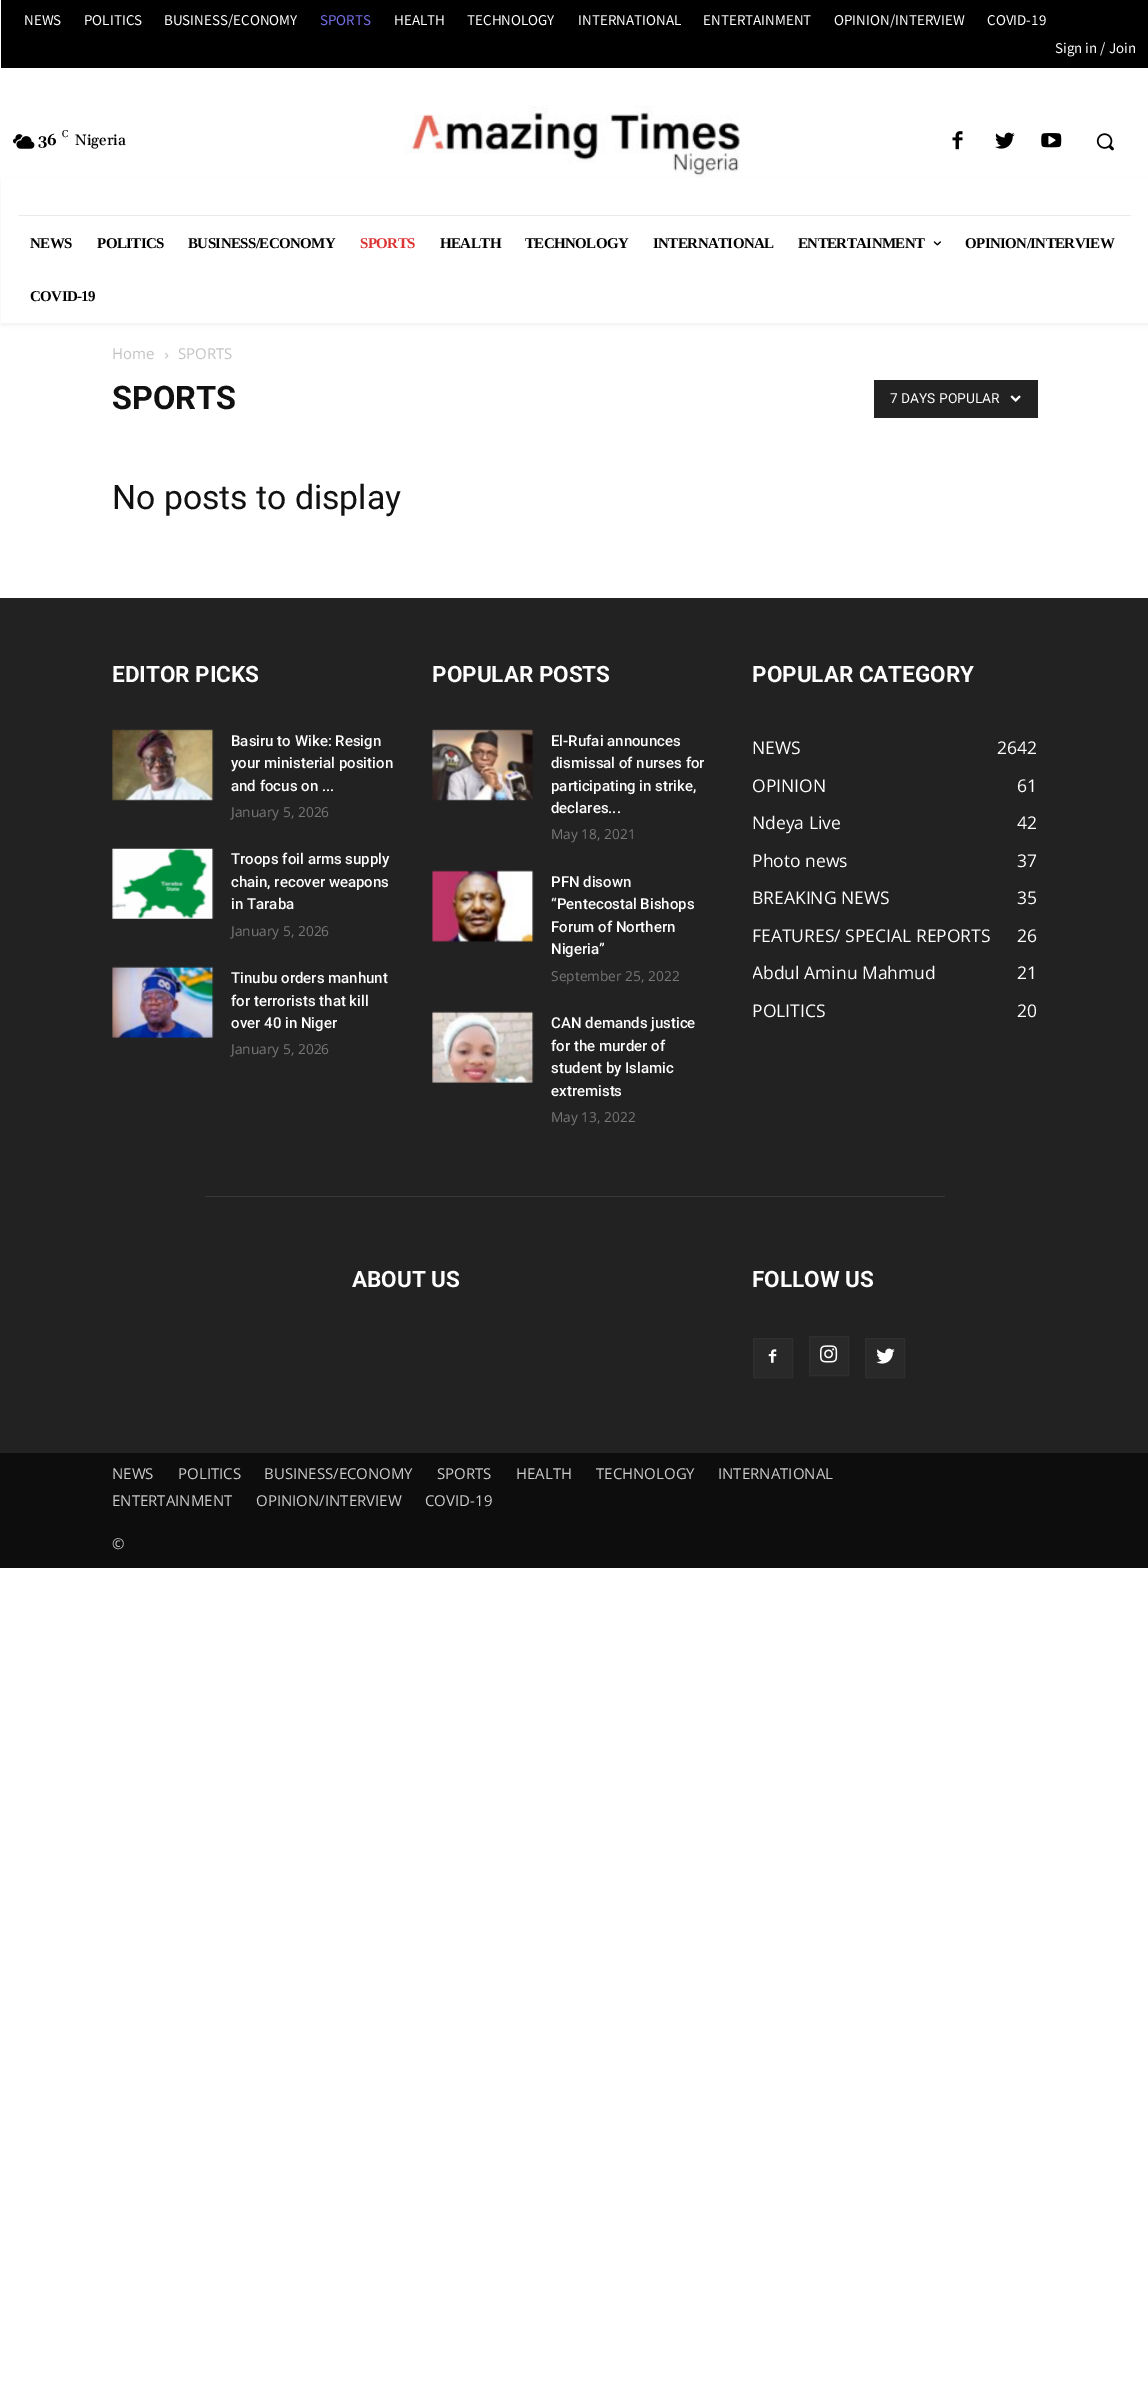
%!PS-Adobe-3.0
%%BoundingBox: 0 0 1148 2407
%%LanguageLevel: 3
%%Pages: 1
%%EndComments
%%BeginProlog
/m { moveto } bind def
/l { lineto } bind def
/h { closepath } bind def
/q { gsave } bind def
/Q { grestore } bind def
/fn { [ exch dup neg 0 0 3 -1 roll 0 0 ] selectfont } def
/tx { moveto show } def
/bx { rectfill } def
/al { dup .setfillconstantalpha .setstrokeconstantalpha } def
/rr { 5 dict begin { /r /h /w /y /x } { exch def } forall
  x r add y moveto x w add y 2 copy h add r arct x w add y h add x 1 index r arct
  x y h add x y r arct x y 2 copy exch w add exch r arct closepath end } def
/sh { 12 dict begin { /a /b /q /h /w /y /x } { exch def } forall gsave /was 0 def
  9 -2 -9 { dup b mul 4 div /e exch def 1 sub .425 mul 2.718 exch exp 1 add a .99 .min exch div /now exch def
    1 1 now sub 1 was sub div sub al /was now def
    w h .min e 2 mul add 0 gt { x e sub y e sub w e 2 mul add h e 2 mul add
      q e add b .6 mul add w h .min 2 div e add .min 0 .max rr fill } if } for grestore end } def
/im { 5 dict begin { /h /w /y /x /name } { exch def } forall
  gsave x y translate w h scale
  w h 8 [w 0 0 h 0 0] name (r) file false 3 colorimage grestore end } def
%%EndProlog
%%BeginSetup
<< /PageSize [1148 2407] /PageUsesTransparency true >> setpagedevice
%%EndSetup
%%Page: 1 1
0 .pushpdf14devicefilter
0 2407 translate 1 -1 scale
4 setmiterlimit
1 setgray
0 0 1148 2407 bx
0 setgray
1 0 1147 68 bx
/SourceSansPro-Regular 15 fn
1 setgray
(NEWS) 24 25 tx
(POLITICS) 84 25 tx
(BUSINESS/ECONOMY) 164 25 tx
0.455 0.431 0.898 setrgbcolor
(SPORTS) 320 25 tx
1 setgray
(HEALTH) 394 25 tx
(TECHNOLOGY) 467 25 tx
(INTERNATIONAL) 578 25 tx
(ENTERTAINMENT) 703 25 tx
(OPINION/INTERVIEW) 834 25 tx
(COVID-19) 987 25 tx
(Sign in / Join) 1055 53 tx
(image0.raw) 13 134 22 15 im
/Gelasio-Bold 15 fn
0 setgray
(36) 38 145 tx
/Gelasio-Regular 10 fn
(C) 62 137 tx
/Gelasio-Medium 15 fn
(Nigeria) 75 145 tx
(image1.raw) 404 105 336 73 im
(image2.raw) 952 131 11 19 im
(image3.raw) 995 132 20 17 im
(image4.raw) 1041 133 21 15 im
(image5.raw) 1096 133 18 18 im
0.918 setgray
18 215 1113 1 bx
q
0 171 m 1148 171 l 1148 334 l 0 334 l h 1 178 m 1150 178 l 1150 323 l 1 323 l h eoclip newpath
0 setgray
1 180 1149 145 0 2.5 0.06 sh
Q
/LiberationSerif-Bold 15 fn
0 setgray
30 248 m -0.6 0 (NEWS) ashow
97 248 m -0.6 0 (POLITICS) ashow
188 248 m -0.6 0 (BUSINESS/ECONOMY) ashow
0.867 0.2 0.2 setrgbcolor
360 248 m -0.6 0 (SPORTS) ashow
0 setgray
440 248 m -0.6 0 (HEALTH) ashow
525 248 m -0.6 0 (TECHNOLOGY) ashow
653 248 m -0.6 0 (INTERNATIONAL) ashow
798 248 m -0.6 0 (ENTERTAINMENT) ashow
(image6.raw) 933 241 8 5 im
965 248 m -0.6 0 (OPINION/INTERVIEW) ashow
30 301 m -0.6 0 (COVID-19) ashow
/OpenSans-Regular 15 fn
0.765 setgray
(Home) 112 359 tx
(image7.raw) 165 352 4 7 im
(SPORTS) 178 359 tx
/Roboto-Bold 32.5 fn
0.067 setgray
(SPORTS) 112 409 tx
0.133 setgray
874 380 164 38 bx
/Roboto-Regular 13.75 fn
1 setgray
(7 DAYS POPULAR) 890 403 tx
(image8.raw) 1010 395 11 7 im
/Roboto-Regular 33.75 fn
0.067 setgray
(No posts to display) 112 509 tx
0.133 setgray
0 598 1148 855 bx
/Roboto-Bold 22.5 fn
1 setgray
(EDITOR PICKS) 112 682 tx
(image9.raw) 112 729 102 72 im
/Roboto-Medium 15 fn
(Basiru to Wike: Resign) 231 746 tx
(your ministerial position) 231 768 tx
(and focus on ...) 231 791 tx
/OpenSans-Regular 13.75 fn
0.463 setgray
(January 5, 2026) 231 817 tx
(image10.raw) 112 848 102 71 im
/Roboto-Medium 15 fn
1 setgray
(Troops foil arms supply) 231 864 tx
(chain, recover weapons) 231 887 tx
(in Taraba) 231 909 tx
/OpenSans-Regular 13.75 fn
0.463 setgray
(January 5, 2026) 231 936 tx
(image11.raw) 112 966 102 72 im
/Roboto-Medium 15 fn
1 setgray
(Tinubu orders manhunt) 231 983 tx
(for terrorists that kill) 231 1006 tx
(over 40 in Niger) 231 1028 tx
/OpenSans-Regular 13.75 fn
0.463 setgray
(January 5, 2026) 231 1054 tx
/Roboto-Bold 22.5 fn
1 setgray
(POPULAR POSTS) 432 682 tx
(image12.raw) 432 729 102 72 im
/Roboto-Medium 15 fn
(El-Rufai announces) 551 746 tx
(dismissal of nurses for) 551 768 tx
(participating in strike,) 551 791 tx
(declares...) 551 813 tx
/OpenSans-Regular 13.75 fn
0.463 setgray
(May 18, 2021) 551 839 tx
(image13.raw) 432 870 102 72 im
/Roboto-Medium 15 fn
1 setgray
(PFN disown) 551 887 tx
(“Pentecostal Bishops) 551 909 tx
(Forum of Northern) 551 932 tx
(Nigeria”) 551 954 tx
/OpenSans-Regular 13.75 fn
0.463 setgray
(September 25, 2022) 551 981 tx
(image14.raw) 432 1011 102 72 im
/Roboto-Medium 15 fn
1 setgray
(CAN demands justice) 551 1028 tx
(for the murder of) 551 1051 tx
(student by Islamic) 551 1073 tx
(extremists) 551 1096 tx
/OpenSans-Regular 13.75 fn
0.463 setgray
(May 13, 2022) 551 1122 tx
/Roboto-Bold 22.5 fn
1 setgray
(POPULAR CATEGORY) 752 682 tx
/OpenSans-Regular 17.5 fn
(NEWS) 752 754 tx
(2642) 997 754 tx
(OPINION) 752 792 tx
(61) 1017 792 tx
(Ndeya Live) 752 829 tx
(42) 1017 829 tx
(Photo news) 752 867 tx
(37) 1017 867 tx
(BREAKING NEWS) 752 904 tx
(35) 1017 904 tx
(FEATURES/ SPECIAL REPORTS) 752 942 tx
(26) 1017 942 tx
q
753 654 285 376 rectclip
(Abdul Aminu Mahmud) 752 979 tx
Q
(21) 1017 979 tx
(POLITICS) 752 1017 tx
(20) 1017 1017 tx
0.22 setgray
205 1196 740 1 bx
/Roboto-Bold 22.5 fn
1 setgray
(ABOUT US) 352 1287 tx
(FOLLOW US) 752 1287 tx
0.161 setgray
754 1339 38 38 bx
(image15.raw) 768 1349 9 14 im
0.184 setgray
753.5 1338.5 39 39 rectstroke
0.161 setgray
810 1337 38 38 bx
(image16.raw) 820 1345 18 18 im
0.184 setgray
809.5 1336.5 39 39 rectstroke
0.161 setgray
866 1339 38 38 bx
(image17.raw) 876 1348 19 16 im
0.184 setgray
865.5 1338.5 39 39 rectstroke
0.051 setgray
0 1453 1148 115 bx
/OpenSans-Regular 15 fn
0.8 setgray
(NEWS) 112 1479 tx
(POLITICS) 178 1479 tx
(BUSINESS/ECONOMY) 264 1479 tx
(SPORTS) 437 1479 tx
(HEALTH) 516 1479 tx
(TECHNOLOGY) 596 1479 tx
(INTERNATIONAL) 718 1479 tx
(ENTERTAINMENT) 112 1506 tx
(OPINION/INTERVIEW) 256 1506 tx
(COVID-19) 425 1506 tx
(©) 112 1549 tx
.poppdf14devicefilter showpage
%%EOF
